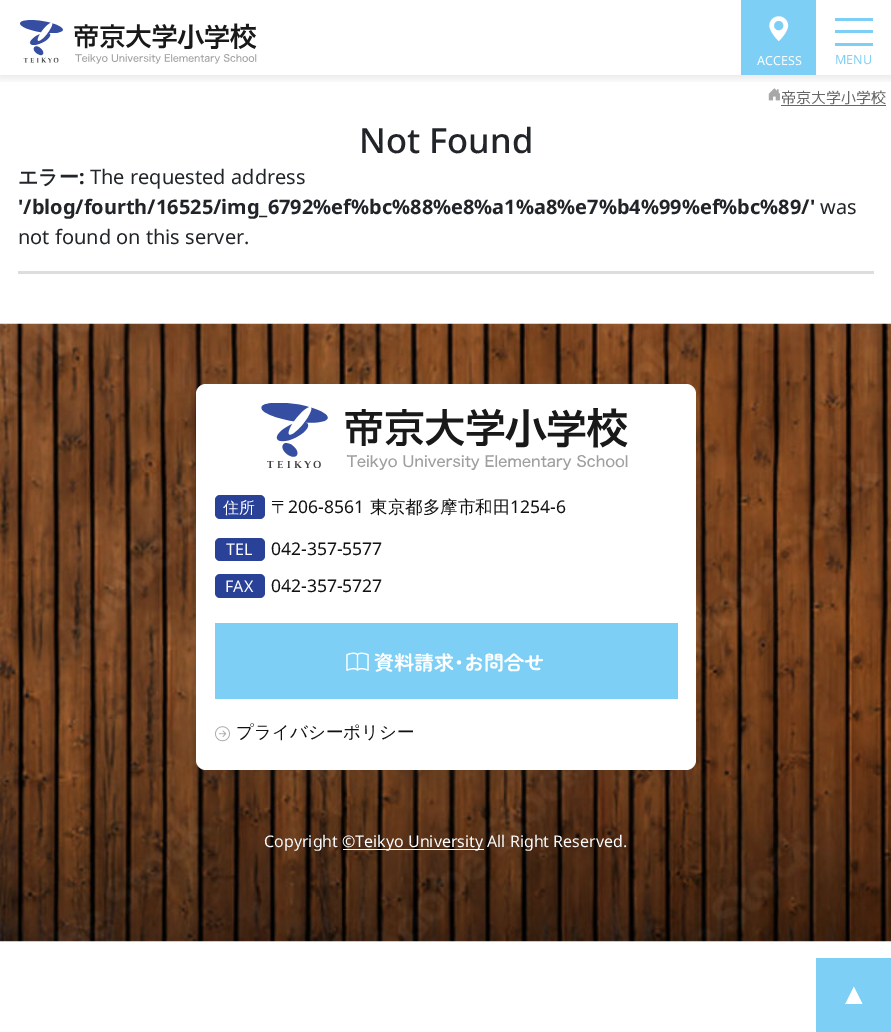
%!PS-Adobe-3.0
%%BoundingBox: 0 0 891 1032
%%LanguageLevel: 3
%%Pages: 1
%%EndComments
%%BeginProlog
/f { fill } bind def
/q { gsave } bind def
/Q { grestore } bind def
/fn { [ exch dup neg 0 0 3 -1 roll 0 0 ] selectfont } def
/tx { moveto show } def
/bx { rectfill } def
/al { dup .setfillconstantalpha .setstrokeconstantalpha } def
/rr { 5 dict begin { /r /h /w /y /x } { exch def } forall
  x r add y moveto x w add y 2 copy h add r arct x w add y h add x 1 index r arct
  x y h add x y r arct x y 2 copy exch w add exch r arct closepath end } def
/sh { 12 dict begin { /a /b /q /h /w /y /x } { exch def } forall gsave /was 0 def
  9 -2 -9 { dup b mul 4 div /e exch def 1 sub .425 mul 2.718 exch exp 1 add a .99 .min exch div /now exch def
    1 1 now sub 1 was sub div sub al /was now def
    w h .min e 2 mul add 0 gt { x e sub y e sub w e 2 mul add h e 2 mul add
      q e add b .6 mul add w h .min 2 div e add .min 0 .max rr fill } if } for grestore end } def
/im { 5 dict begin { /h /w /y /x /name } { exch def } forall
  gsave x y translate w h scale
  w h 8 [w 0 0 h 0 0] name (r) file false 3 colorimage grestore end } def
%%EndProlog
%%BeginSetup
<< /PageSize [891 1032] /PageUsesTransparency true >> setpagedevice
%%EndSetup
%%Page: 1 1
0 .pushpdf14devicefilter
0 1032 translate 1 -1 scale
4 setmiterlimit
1 setgray
0 0 891 1032 bx
(image2.raw) 768 88 12 13 im
q
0 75 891 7 rectclip
0 setgray
0 3 891 75 0 5 0.1 sh
Q
(image0.raw) 20 20 237 44 im
0.494 0.812 0.961 setrgbcolor
741 0 75 75 bx
(image1.raw) 769 16 20 26 im
/NotoSans-Regular 12.5 fn
1 setgray
(ACCESS) 757 65 tx
0.494 0.812 0.961 setrgbcolor
835 18 38 3 bx
835 30 38 3 bx
835 43 38 3 bx
(MENU) 835 64 tx
/MPLUS1p-Regular 15 fn
0.4 setgray
(帝京大学小学校) 781 103 tx
781 105 105 1 bx
/NotoSans-Medium 34.5 fn
0.129 0.145 0.161 setrgbcolor
(Not Found) 359 153 tx
/WenQuanYiZenHei-Bold 20 fn
(エラー) 18 184 tx
/NotoSans-Bold 20 fn
(:) 79 184 tx
/NotoSans-Regular 20 fn
(The requested address) 90 184 tx
/NotoSans-Bold 20 fn
('/blog/fourth/16525/img_6792%ef%bc%88%e8%a1%a8%e7%b4%99%ef%bc%89/') 18 214 tx
/NotoSans-Regular 20 fn
(was) 820 214 tx
(not found on this server.) 18 244 tx
0.867 setgray
18 271 856 3 bx
(image3.raw) 0 323 891 619 im
0.227 0.224 0.216 setrgbcolor
203 403 487 373 4 15.5 0.2 sh
1 setgray
196 384 500 386 10 rr f
(image4.raw) 261 403 367 67 im
0.165 0.255 0.596 setrgbcolor
215 495 50 24 5 rr f
/WenQuanYiZenHei-Medium 16 fn
1 setgray
(住所) 223 513 tx
/WenQuanYiZenHei-Medium 17.5 fn
0.067 setgray
(〒) 271 513 tx
/NotoSans-Regular 17.5 fn
(206-8561) 288 513 tx
/WenQuanYiZenHei-Medium 17.5 fn
(東京都多摩市和田) 370 513 tx
/NotoSans-Regular 17.5 fn
(1254-6) 510 513 tx
0.165 0.255 0.596 setrgbcolor
215 538 50 23 5 rr f
/NotoSans-Regular 16 fn
1 setgray
(TEL) 226 555 tx
/NotoSans-Regular 17.5 fn
0.067 setgray
(042-357-5577) 271 555 tx
0.165 0.255 0.596 setrgbcolor
215 574 50 24 5 rr f
/NotoSans-Regular 16 fn
1 setgray
(FAX) 225 592 tx
/NotoSans-Regular 17.5 fn
0.067 setgray
(042-357-5727) 271 592 tx
0.494 0.812 0.961 setrgbcolor
215 623 463 76 bx
(image5.raw) 346 652 23 19 im
/ZenMaruGothic-Bold 20 fn
1 setgray
(資料請求･お問合せ) 374 670 tx
(image6.raw) 215 726 15 16 im
/WenQuanYiZenHei-Medium 17.5 fn
0.067 setgray
(プライバシーポリシー) 236 738 tx
/NotoSans-Regular 16 fn
0.973 0.976 0.98 setrgbcolor
(Copyright) 264 847 tx
1 setgray
343 849 141 1 bx
(©Teikyo University) 342 847 tx
0.973 0.976 0.98 setrgbcolor
(All Right Reserved.) 487 847 tx
0.494 0.812 0.961 setrgbcolor
816 958 75 74 bx
/LiberationSans-Regular 30 fn
1 setgray
(▲) 839 1004 tx
.poppdf14devicefilter showpage
%%EOF
